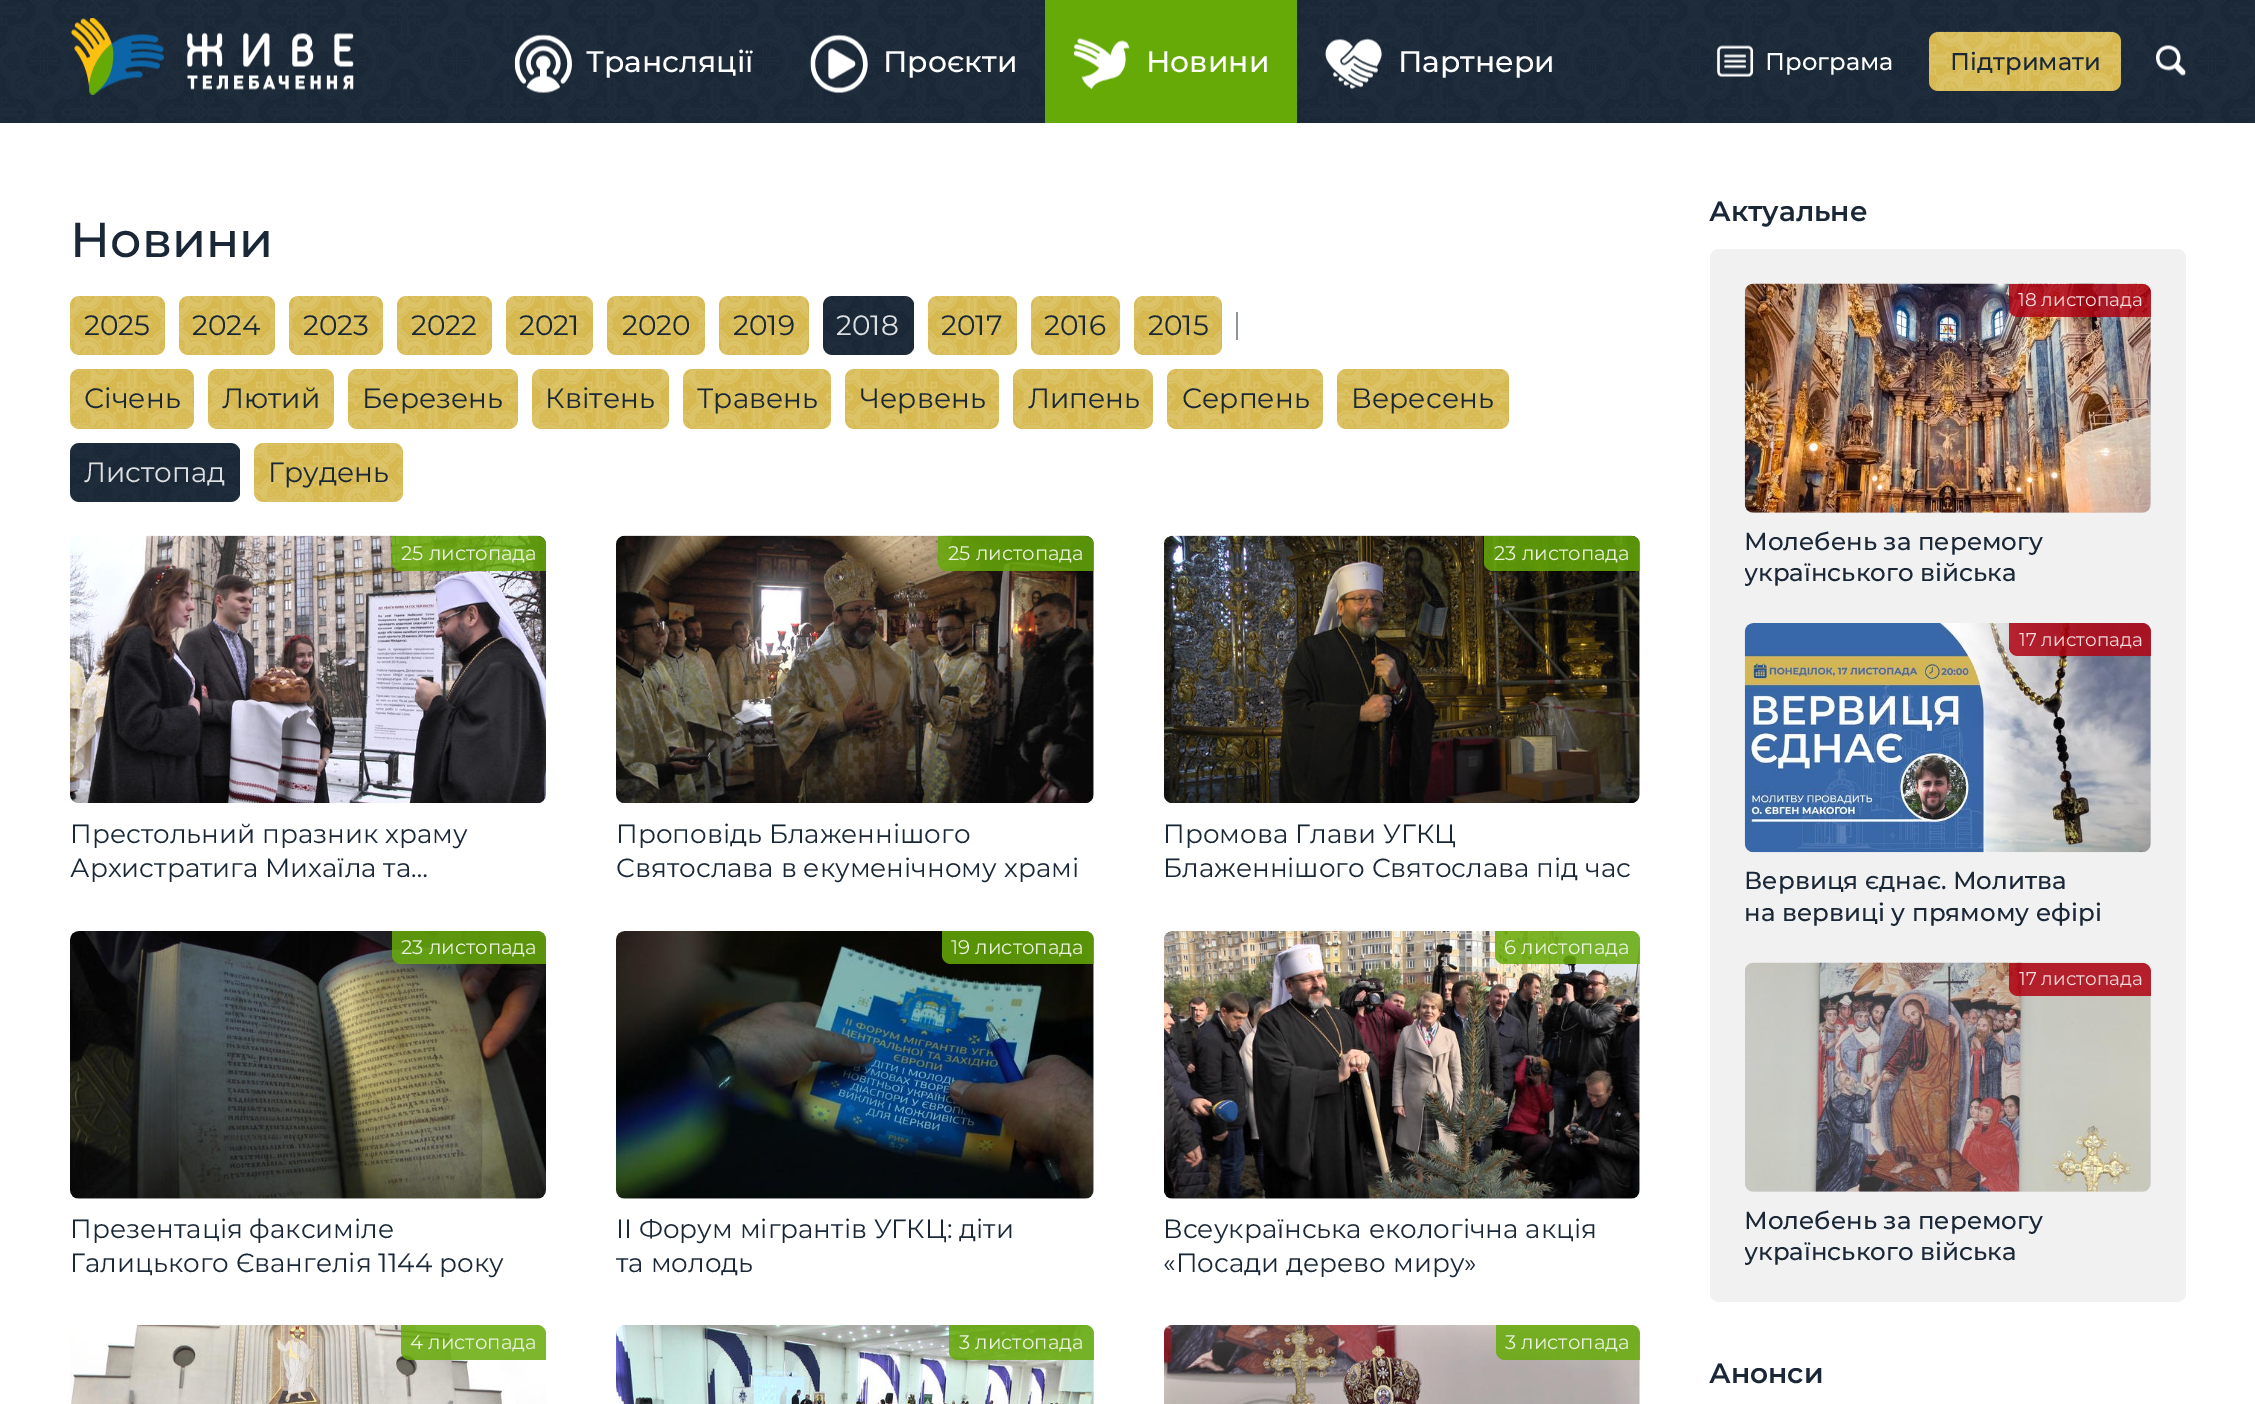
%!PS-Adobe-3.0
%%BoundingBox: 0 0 2255 1404
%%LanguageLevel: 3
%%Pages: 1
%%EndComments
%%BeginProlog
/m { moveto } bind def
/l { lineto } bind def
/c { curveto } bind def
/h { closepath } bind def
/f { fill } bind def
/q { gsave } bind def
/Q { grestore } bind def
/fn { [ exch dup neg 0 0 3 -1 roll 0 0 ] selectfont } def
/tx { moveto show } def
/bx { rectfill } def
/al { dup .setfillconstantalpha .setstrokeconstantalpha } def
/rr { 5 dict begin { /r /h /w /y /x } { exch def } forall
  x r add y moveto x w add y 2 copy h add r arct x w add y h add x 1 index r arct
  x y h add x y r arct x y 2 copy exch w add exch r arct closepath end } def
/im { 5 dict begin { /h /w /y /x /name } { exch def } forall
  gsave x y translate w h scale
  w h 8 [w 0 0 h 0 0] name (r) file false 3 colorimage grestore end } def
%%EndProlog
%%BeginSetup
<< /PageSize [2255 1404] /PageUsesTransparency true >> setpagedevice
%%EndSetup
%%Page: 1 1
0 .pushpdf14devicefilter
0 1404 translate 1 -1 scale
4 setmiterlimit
1 setgray
0 0 2255 1404 bx
0.098 0.153 0.212 setrgbcolor
0 0 2255 123 bx
(image0.raw) 0 0 2255 122 im
(image1.raw) 71 18 283 77 im
(image2.raw) 514 34 58 59 im
/Montserrat-Medium 29.75 fn
1 setgray
(Трансляції) 586 72 tx
(image3.raw) 810 34 58 59 im
(Проєкти) 883 72 tx
0.4 0.667 0.031 setrgbcolor
1045 0 252 123 bx
(image4.raw) 1073 38 57 52 im
1 setgray
(Новини) 1146 72 tx
(image5.raw) 1325 38 57 51 im
(Партнери) 1398 72 tx
(image6.raw) 1717 45 37 32 im
/Montserrat-Medium 24.25 fn
(Програма) 1765 70 tx
0.839 0.722 0.306 setrgbcolor
1929 32 192 59 9 rr f
(image7.raw) 1928 31 193 60 im
0.098 0.153 0.212 setrgbcolor
(Підтримати) 1950 70 tx
(image8.raw) 2156 45 30 31 im
/Montserrat-Medium 49 fn
(Новини) 70 257 tx
0.839 0.722 0.306 setrgbcolor
70 296 95 59 9 rr f
(image9.raw) 70 296 95 59 im
/Montserrat-Regular 28 fn
0.098 0.153 0.212 setrgbcolor
(2025) 84 335 tx
0.839 0.722 0.306 setrgbcolor
179 296 96 59 9 rr f
(image10.raw) 179 296 96 59 im
0.098 0.153 0.212 setrgbcolor
(2024) 192 335 tx
0.839 0.722 0.306 setrgbcolor
289 296 94 59 9 rr f
(image11.raw) 289 296 94 59 im
0.098 0.153 0.212 setrgbcolor
(2023) 303 335 tx
0.839 0.722 0.306 setrgbcolor
397 296 95 59 9 rr f
(image12.raw) 397 296 95 59 im
0.098 0.153 0.212 setrgbcolor
(2022) 411 335 tx
0.839 0.722 0.306 setrgbcolor
506 296 87 59 9 rr f
(image13.raw) 506 296 87 59 im
0.098 0.153 0.212 setrgbcolor
(2021) 519 335 tx
0.839 0.722 0.306 setrgbcolor
607 296 98 59 9 rr f
(image14.raw) 607 296 98 59 im
0.098 0.153 0.212 setrgbcolor
(2020) 622 335 tx
0.839 0.722 0.306 setrgbcolor
719 296 90 59 9 rr f
(image15.raw) 719 296 90 59 im
0.098 0.153 0.212 setrgbcolor
(2019) 733 335 tx
823 296 91 59 9 rr f
(image16.raw) 823 296 90 59 im
0.867 0.875 0.882 setrgbcolor
(2018) 836 335 tx
0.839 0.722 0.306 setrgbcolor
928 296 89 59 9 rr f
(image17.raw) 928 296 89 59 im
0.098 0.153 0.212 setrgbcolor
(2017) 941 335 tx
0.839 0.722 0.306 setrgbcolor
1031 296 89 59 9 rr f
(image18.raw) 1031 296 89 59 im
0.098 0.153 0.212 setrgbcolor
(2016) 1044 335 tx
0.839 0.722 0.306 setrgbcolor
1134 296 88 59 9 rr f
(image19.raw) 1134 296 88 59 im
0.098 0.153 0.212 setrgbcolor
(2015) 1148 335 tx
0.549 0.576 0.608 setrgbcolor
1236 312 2 28 bx
0.839 0.722 0.306 setrgbcolor
70 369 124 60 9 rr f
(image20.raw) 70 369 124 60 im
0.098 0.153 0.212 setrgbcolor
(Січень) 84 408 tx
0.839 0.722 0.306 setrgbcolor
208 369 126 60 9 rr f
(image21.raw) 208 369 126 60 im
0.098 0.153 0.212 setrgbcolor
(Лютий) 222 408 tx
0.839 0.722 0.306 setrgbcolor
348 369 170 60 9 rr f
(image22.raw) 348 369 170 60 im
0.098 0.153 0.212 setrgbcolor
(Березень) 362 408 tx
0.839 0.722 0.306 setrgbcolor
532 369 137 60 9 rr f
(image23.raw) 532 369 137 60 im
0.098 0.153 0.212 setrgbcolor
(Квітень) 545 408 tx
0.839 0.722 0.306 setrgbcolor
683 369 148 60 9 rr f
(image24.raw) 683 369 148 60 im
0.098 0.153 0.212 setrgbcolor
(Травень) 697 408 tx
0.839 0.722 0.306 setrgbcolor
845 369 154 60 9 rr f
(image25.raw) 845 369 154 60 im
0.098 0.153 0.212 setrgbcolor
(Червень) 860 408 tx
0.839 0.722 0.306 setrgbcolor
1013 369 140 60 9 rr f
(image26.raw) 1013 369 140 60 im
0.098 0.153 0.212 setrgbcolor
(Липень) 1028 408 tx
0.839 0.722 0.306 setrgbcolor
1167 369 156 60 9 rr f
(image27.raw) 1167 369 156 60 im
0.098 0.153 0.212 setrgbcolor
(Серпень) 1182 408 tx
0.839 0.722 0.306 setrgbcolor
1337 369 172 60 9 rr f
(image28.raw) 1337 369 172 60 im
0.098 0.153 0.212 setrgbcolor
(Вересень) 1351 408 tx
70 443 170 59 9 rr f
(image29.raw) 70 443 169 59 im
0.867 0.875 0.882 setrgbcolor
(Листопад) 84 482 tx
0.839 0.722 0.306 setrgbcolor
254 443 149 59 9 rr f
(image30.raw) 254 443 149 59 im
0.098 0.153 0.212 setrgbcolor
(Грудень) 268 482 tx
(image31.raw) 70 535 476 268 im
0.85 al
0.4 0.667 0.031 setrgbcolor
392 536 m 537 536 l 542 536 546 540 546 545 c 546 571 l 401 571 l 396 571 392 567 392 562 c h f
/Montserrat-Regular 19.75 fn
1 al
0.918 0.949 0.871 setrgbcolor
(25 листопада) 401 560 tx
/Montserrat-Regular 26.25 fn
0.098 0.153 0.212 setrgbcolor
(Престольний празник храму) 70 843 tx
(Архистратига Михаїла та…) 70 877 tx
0.949 0.949 0.953 setrgbcolor
616 536 478 267 9 rr f
(image32.raw) 616 535 478 268 im
0.85 al
0.4 0.667 0.031 setrgbcolor
938 536 m 1085 536 l 1090 536 1094 540 1094 545 c 1094 571 l 947 571 l 942 571 938 567 938 562 c h f
/Montserrat-Regular 19.75 fn
1 al
0.918 0.949 0.871 setrgbcolor
(25 листопада) 948 560 tx
/Montserrat-Regular 26.25 fn
0.098 0.153 0.212 setrgbcolor
(Проповідь Блаженнішого) 616 843 tx
(Святослава в екуменічному храмі) 616 877 tx
0.949 0.949 0.953 setrgbcolor
1164 536 476 267 9 rr f
(image33.raw) 1164 535 476 268 im
0.85 al
0.4 0.667 0.031 setrgbcolor
1484 536 m 1631 536 l 1636 536 1640 540 1640 545 c 1640 571 l 1493 571 l 1488 571 1484 567 1484 562 c h f
/Montserrat-Regular 19.75 fn
1 al
0.918 0.949 0.871 setrgbcolor
(23 листопада) 1494 560 tx
/Montserrat-Regular 26.25 fn
0.098 0.153 0.212 setrgbcolor
(Промова Глави УГКЦ) 1163 843 tx
(Блаженнішого Святослава під час) 1163 877 tx
0.949 0.949 0.953 setrgbcolor
70 931 476 268 9 rr f
(image34.raw) 70 931 476 268 im
0.85 al
0.4 0.667 0.031 setrgbcolor
392 931 m 537 931 l 542 931 546 935 546 940 c 546 964 l 401 964 l 396 964 392 960 392 955 c h f
/Montserrat-Regular 19.75 fn
1 al
0.918 0.949 0.871 setrgbcolor
(23 листопада) 401 954 tx
/Montserrat-Regular 26.25 fn
0.098 0.153 0.212 setrgbcolor
(Презентація факсиміле) 70 1238 tx
(Галицького Євангелія 1144 року) 70 1272 tx
0.949 0.949 0.953 setrgbcolor
616 931 478 268 9 rr f
(image35.raw) 616 931 478 268 im
0.85 al
0.4 0.667 0.031 setrgbcolor
942 931 m 1085 931 l 1090 931 1094 935 1094 940 c 1094 964 l 951 964 l 946 964 942 960 942 955 c h f
/Montserrat-Regular 19.75 fn
1 al
0.918 0.949 0.871 setrgbcolor
(19 листопада) 951 954 tx
/Montserrat-Regular 26.25 fn
0.098 0.153 0.212 setrgbcolor
(II Форум мігрантів УГКЦ: діти) 616 1238 tx
(та молодь) 616 1272 tx
0.949 0.949 0.953 setrgbcolor
1164 931 476 268 9 rr f
(image36.raw) 1164 931 476 268 im
0.85 al
0.4 0.667 0.031 setrgbcolor
1495 931 m 1631 931 l 1636 931 1640 935 1640 940 c 1640 964 l 1504 964 l 1499 964 1495 960 1495 955 c h f
/Montserrat-Regular 19.75 fn
1 al
0.918 0.949 0.871 setrgbcolor
(6 листопада) 1504 954 tx
/Montserrat-Regular 26.25 fn
0.098 0.153 0.212 setrgbcolor
(Всеукраїнська екологічна акція) 1163 1238 tx
(«Посади дерево миру») 1163 1272 tx
(image37.raw) 70 1325 476 79 im
0.85 al
0.4 0.667 0.031 setrgbcolor
401 1325 m 537 1325 l 542 1325 546 1329 546 1334 c 546 1360 l 410 1360 l 405 1360 401 1356 401 1351 c h f
/Montserrat-Regular 19.75 fn
1 al
0.918 0.949 0.871 setrgbcolor
(4 листопада) 410 1349 tx
0.945 0.949 0.953 setrgbcolor
616 1325 478 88 9 rr f
(image38.raw) 616 1325 478 79 im
0.85 al
0.4 0.667 0.031 setrgbcolor
949 1325 m 1085 1325 l 1090 1325 1094 1329 1094 1334 c 1094 1360 l 958 1360 l 953 1360 949 1356 949 1351 c h f
1 al
0.918 0.949 0.871 setrgbcolor
(3 листопада) 959 1349 tx
0.945 0.949 0.953 setrgbcolor
1164 1325 476 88 9 rr f
(image39.raw) 1164 1325 476 79 im
0.85 al
0.4 0.667 0.031 setrgbcolor
1496 1325 m 1631 1325 l 1636 1325 1640 1329 1640 1334 c 1640 1360 l 1505 1360 l 1500 1360 1496 1356 1496 1351 c h f
1 al
0.918 0.949 0.871 setrgbcolor
(3 листопада) 1505 1349 tx
/Montserrat-SemiBold 28 fn
0.098 0.153 0.212 setrgbcolor
(Актуальне) 1709 221 tx
0.945 0.945 0.949 setrgbcolor
1710 249 476 1053 9 rr f
0.894 0.898 0.906 setrgbcolor
1745 284 406 229 9 rr f
(image40.raw) 1744 283 407 230 im
0.85 al
0.69 0.012 0.071 setrgbcolor
2009 284 m 2142 284 l 2147 284 2151 288 2151 293 c 2151 317 l 2018 317 l 2013 317 2009 313 2009 308 c h f
/Montserrat-Regular 18.5 fn
1 al
0.953 0.863 0.871 setrgbcolor
(18 листопада) 2018 306 tx
/Montserrat-Medium 24.5 fn
0.098 0.153 0.212 setrgbcolor
(Молебень за перемогу) 1744 550 tx
q
1745 525 406 63 rectclip
(українського війська) 1744 581 tx
Q
0.894 0.898 0.906 setrgbcolor
1745 623 406 229 9 rr f
(image41.raw) 1744 623 407 230 im
0.85 al
0.69 0.012 0.071 setrgbcolor
2009 623 m 2142 623 l 2147 623 2151 627 2151 632 c 2151 656 l 2018 656 l 2013 656 2009 652 2009 647 c h f
/Montserrat-Regular 18.5 fn
1 al
0.953 0.863 0.871 setrgbcolor
(17 листопада) 2019 646 tx
/Montserrat-Medium 24.5 fn
0.098 0.153 0.212 setrgbcolor
(Вервиця єднає. Молитва) 1744 889 tx
(на вервиці у прямому ефірі) 1744 921 tx
0.894 0.898 0.906 setrgbcolor
1745 963 406 229 9 rr f
(image42.raw) 1745 962 406 230 im
0.85 al
0.69 0.012 0.071 setrgbcolor
2009 963 m 2142 963 l 2147 963 2151 967 2151 972 c 2151 996 l 2018 996 l 2013 996 2009 992 2009 987 c h f
/Montserrat-Regular 18.5 fn
1 al
0.953 0.863 0.871 setrgbcolor
(17 листопада) 2019 985 tx
/Montserrat-Medium 24.5 fn
0.098 0.153 0.212 setrgbcolor
(Молебень за перемогу) 1744 1229 tx
q
1745 1204 406 63 rectclip
(українського війська) 1744 1260 tx
Q
/Montserrat-SemiBold 28 fn
(Анонси) 1709 1383 tx
.poppdf14devicefilter showpage
%%EOF
